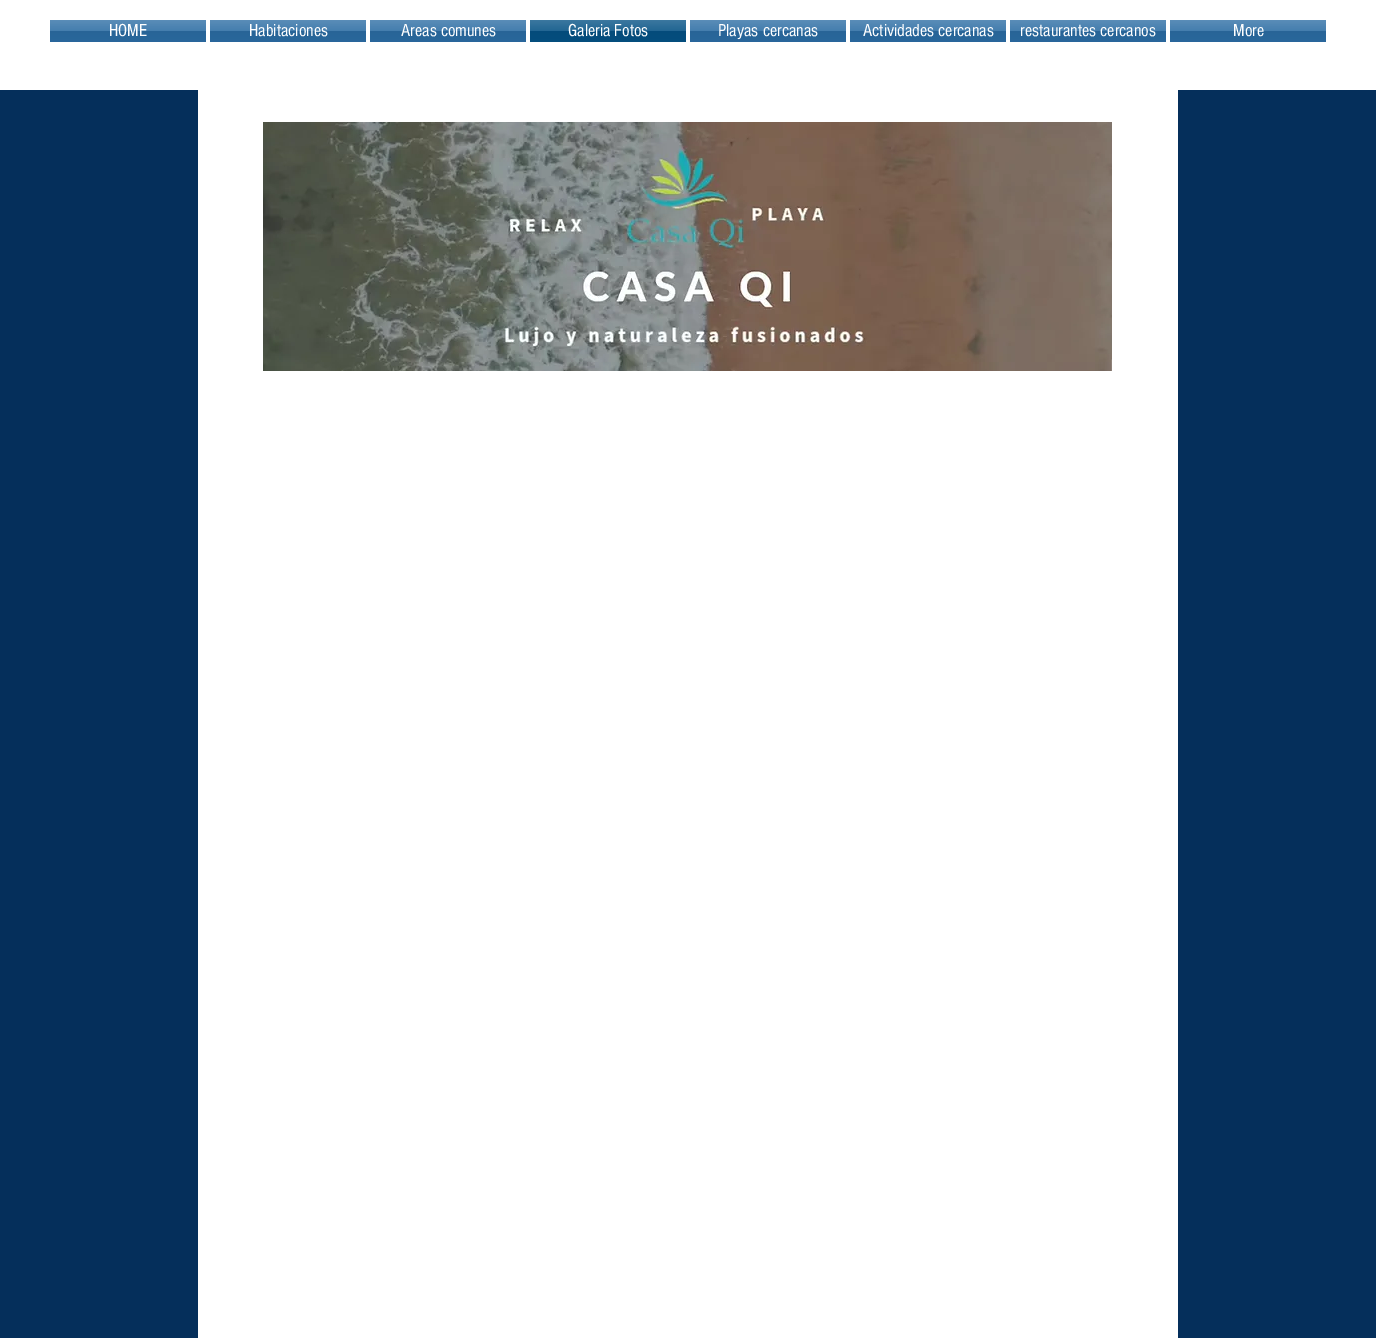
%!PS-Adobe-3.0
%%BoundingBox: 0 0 1376 1338
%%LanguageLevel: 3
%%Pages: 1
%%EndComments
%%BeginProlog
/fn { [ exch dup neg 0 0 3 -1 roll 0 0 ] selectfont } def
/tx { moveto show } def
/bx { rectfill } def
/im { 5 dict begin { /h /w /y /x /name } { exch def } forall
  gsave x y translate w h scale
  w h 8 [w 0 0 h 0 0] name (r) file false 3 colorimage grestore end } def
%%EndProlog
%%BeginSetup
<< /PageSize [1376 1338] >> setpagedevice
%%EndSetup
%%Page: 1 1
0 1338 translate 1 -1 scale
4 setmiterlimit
0.02 0.184 0.357 setrgbcolor
0 0 1376 1338 bx
1 setgray
0 0 1376 90 bx
0.169 0.424 0.639 setrgbcolor
50 20 156 22 bx
(image0.raw) 50 20 156 22 im
/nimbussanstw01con-Regular 18 fn
1 setgray
(HOME) 109 36 tx
0.169 0.424 0.639 setrgbcolor
210 20 156 22 bx
(image0.raw) 210 20 156 22 im
1 setgray
(Habitaciones) 249 36 tx
0.169 0.424 0.639 setrgbcolor
370 20 156 22 bx
(image0.raw) 370 20 156 22 im
1 setgray
(Areas comunes) 401 36 tx
0.016 0.318 0.518 setrgbcolor
530 20 156 22 bx
(image1.raw) 530 20 156 22 im
1 setgray
(Galeria Fotos) 568 36 tx
0.169 0.424 0.639 setrgbcolor
690 20 156 22 bx
(image0.raw) 690 20 156 22 im
1 setgray
(Playas cercanas) 718 36 tx
0.169 0.424 0.639 setrgbcolor
850 20 156 22 bx
(image0.raw) 850 20 156 22 im
1 setgray
(Actividades cercanas) 863 36 tx
0.169 0.424 0.639 setrgbcolor
1010 20 156 22 bx
(image0.raw) 1010 20 156 22 im
1 setgray
(restaurantes cercanos) 1020 36 tx
0.169 0.424 0.639 setrgbcolor
1170 20 156 22 bx
(image0.raw) 1170 20 156 22 im
1 setgray
(More) 1233 36 tx
198 90 980 1248 bx
(image2.raw) 263 122 849 249 im
showpage
%%EOF
